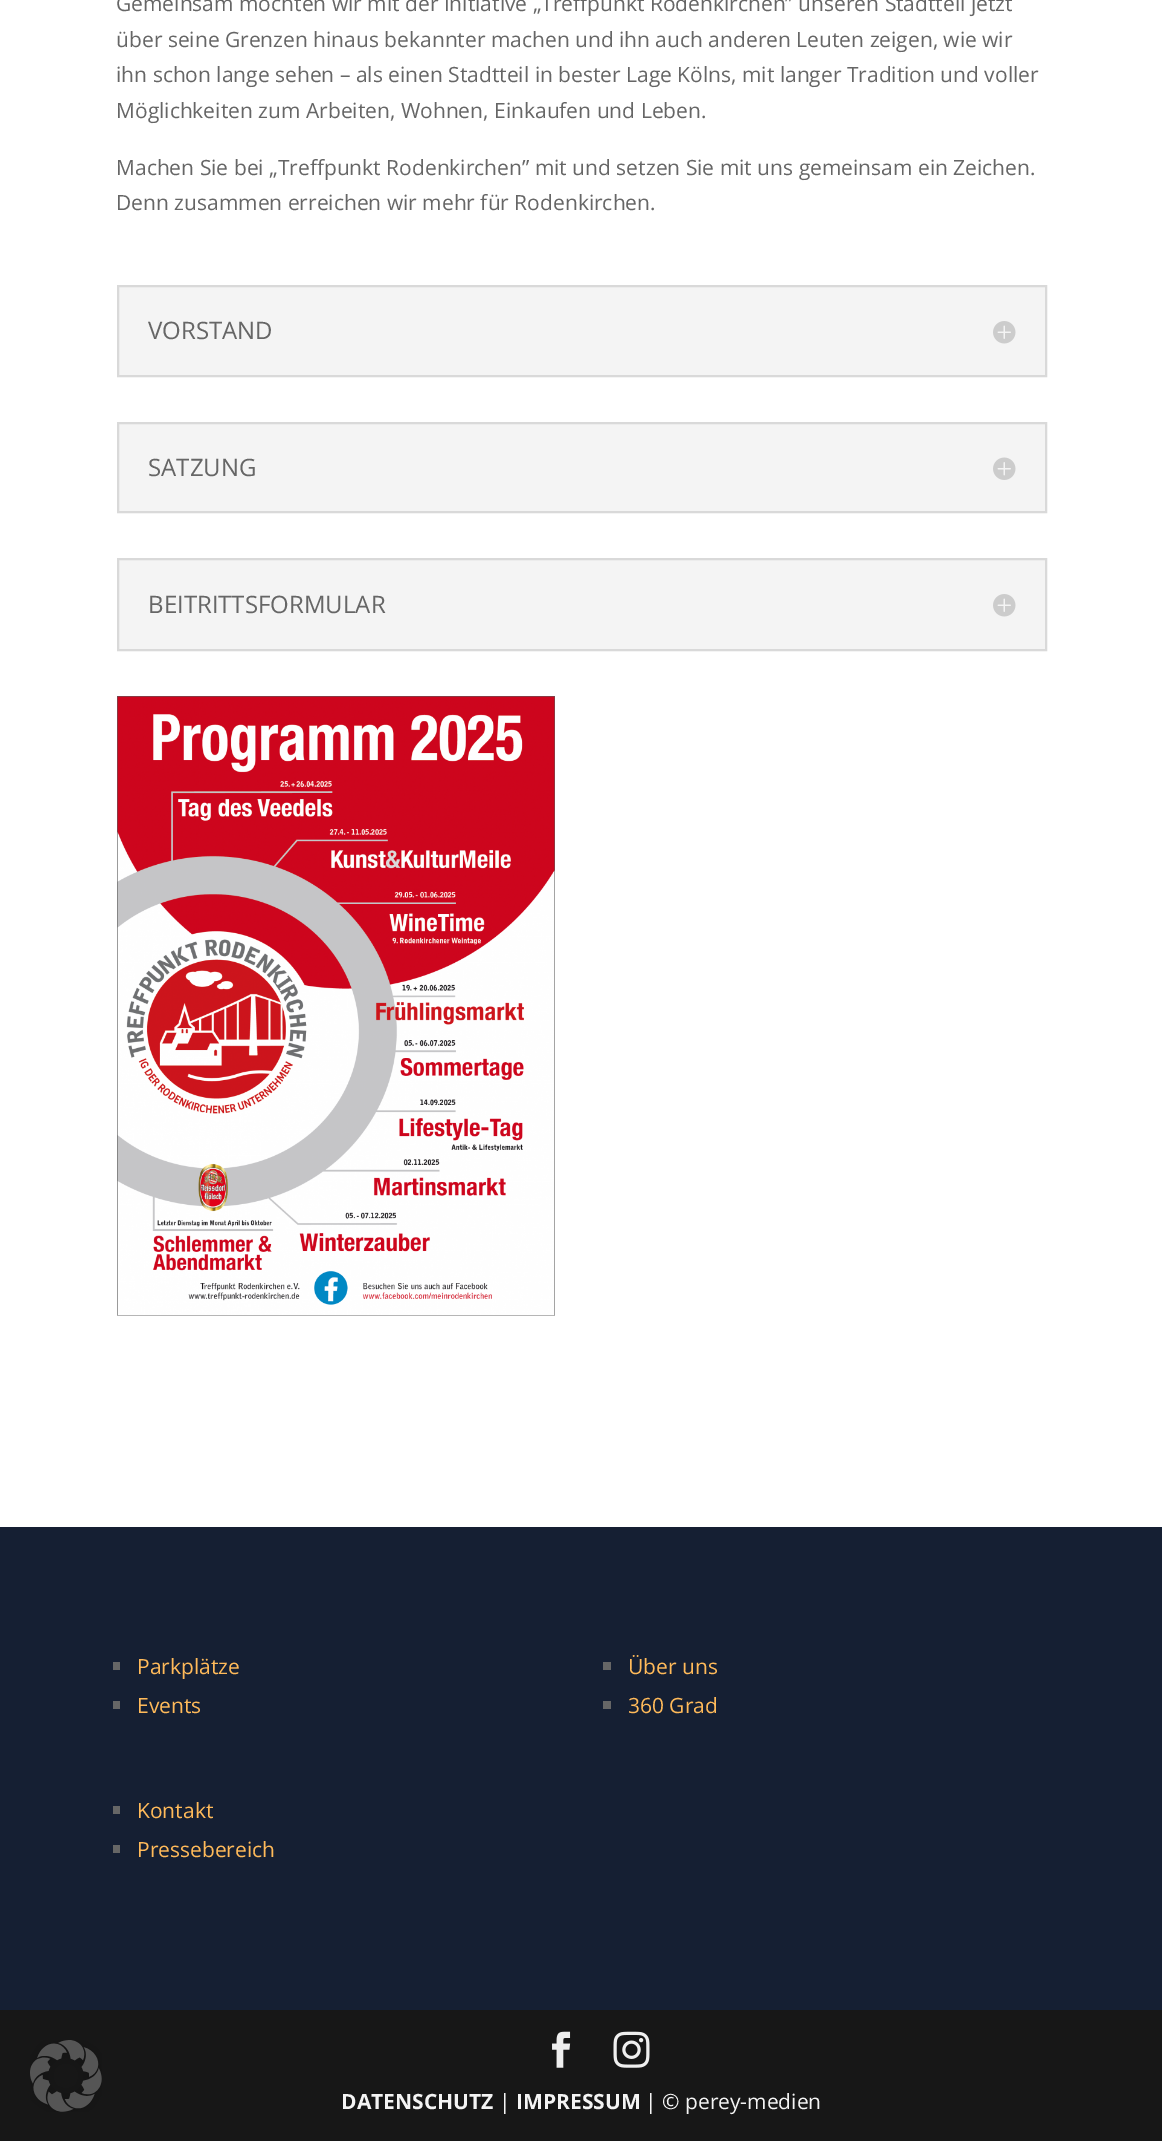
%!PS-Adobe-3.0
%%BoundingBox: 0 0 1162 2141
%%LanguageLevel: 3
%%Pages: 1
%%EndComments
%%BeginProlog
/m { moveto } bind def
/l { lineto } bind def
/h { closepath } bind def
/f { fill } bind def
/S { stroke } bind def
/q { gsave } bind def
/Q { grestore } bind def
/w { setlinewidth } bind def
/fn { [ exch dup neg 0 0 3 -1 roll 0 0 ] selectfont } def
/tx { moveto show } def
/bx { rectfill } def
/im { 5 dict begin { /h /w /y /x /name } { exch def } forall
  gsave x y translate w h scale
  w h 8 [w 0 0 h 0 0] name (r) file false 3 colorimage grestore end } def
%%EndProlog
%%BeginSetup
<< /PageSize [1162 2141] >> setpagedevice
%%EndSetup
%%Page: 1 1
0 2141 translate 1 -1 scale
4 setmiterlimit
0.09 setgray
0 0 1162 2141 bx
(image0.raw) 30 2040 72 72 im
1 setgray
0 0 1162 1527 bx
/OpenSans-Regular 21 fn
0.4 setgray
(Gemeinsam möchten wir mit der Initiative „Treffpunkt Rodenkirchen” unseren Stadtteil jetzt) 116 11 tx
(über seine Grenzen hinaus bekannter machen und ihn auch anderen Leuten zeigen, wie wir) 116 47 tx
(ihn schon lange sehen – als einen Stadtteil in bester Lage Kölns, mit langer Tradition und voller) 116 82 tx
(Möglichkeiten zum Arbeiten, Wohnen, Einkaufen und Leben.) 116 118 tx
(Machen Sie bei „Treffpunkt Rodenkirchen” mit und setzen Sie mit uns gemeinsam ein Zeichen.) 116 175 tx
(Denn zusammen erreichen wir mehr für Rodenkirchen.) 116 210 tx
0.957 setgray
118 286 m 1046 286 l 1046 376 l 118 376 l h q f Q
0.851 setgray
2 w
S
/OpenSans-Regular 24 fn
0.4 setgray
(VORSTAND) 148 339 tx
(image1.raw) 993 321 23 23 im
0.957 setgray
118 423 m 1046 423 l 1046 512 l 118 512 l h q f Q
0.851 setgray
S
0.4 setgray
(SATZUNG) 148 476 tx
(image2.raw) 993 457 23 23 im
0.957 setgray
118 559 m 1046 559 l 1046 650 l 118 650 l h q f Q
0.851 setgray
S
0.4 setgray
(BEITRITTSFORMULAR) 148 613 tx
(image1.raw) 993 594 23 23 im
(image3.raw) 117 696 438 620 im
0.082 0.122 0.2 setrgbcolor
0 1527 1162 483 bx
0.4 setgray
113 1662 7 8 bx
/OpenSans-Regular 21 fn
1 0.729 0.353 setrgbcolor
(Parkplätze) 137 1674 tx
0.4 setgray
113 1701 7 8 bx
1 0.729 0.353 setrgbcolor
(Events) 137 1713 tx
0.4 setgray
603 1662 8 8 bx
1 0.729 0.353 setrgbcolor
(Über uns) 628 1674 tx
0.4 setgray
603 1701 8 8 bx
1 0.729 0.353 setrgbcolor
(360 Grad) 628 1713 tx
0.4 setgray
113 1806 7 8 bx
1 0.729 0.353 setrgbcolor
(Kontakt) 137 1818 tx
0.4 setgray
113 1845 7 8 bx
1 0.729 0.353 setrgbcolor
(Pressebereich) 137 1857 tx
(image4.raw) 552 2031 19 37 im
(image5.raw) 613 2031 37 37 im
/OpenSans-Bold 21 fn
0.957 setgray
(DATENSCHUTZ) 341 2109 tx
/OpenSans-Medium 21 fn
(|) 499 2109 tx
/OpenSans-Bold 21 fn
(IMPRESSUM) 516 2109 tx
/OpenSans-Regular 21 fn
(| © perey-medien) 645 2109 tx
showpage
%%EOF
